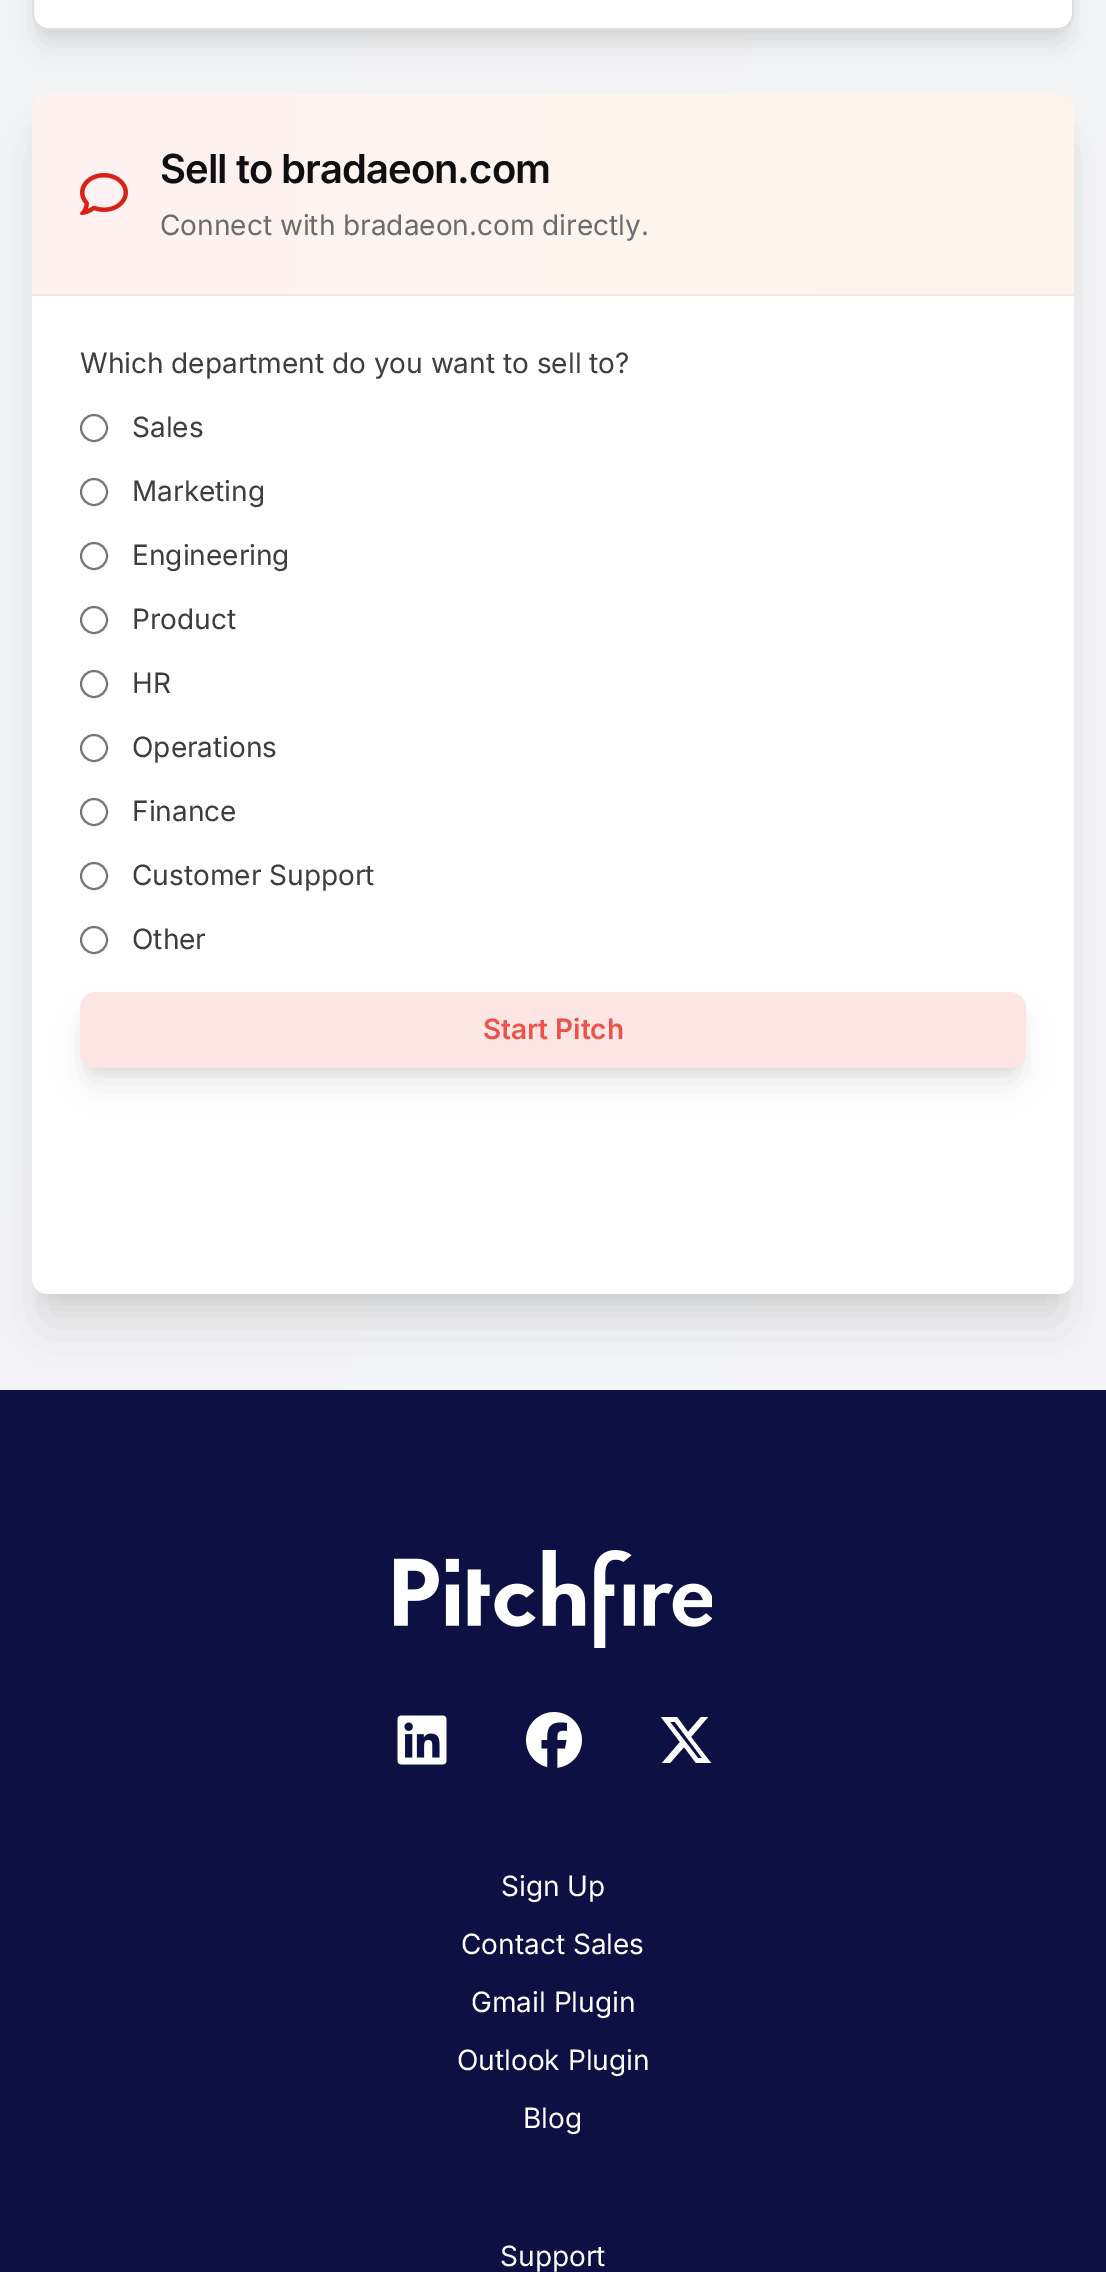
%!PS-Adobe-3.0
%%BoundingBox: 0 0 1106 2272
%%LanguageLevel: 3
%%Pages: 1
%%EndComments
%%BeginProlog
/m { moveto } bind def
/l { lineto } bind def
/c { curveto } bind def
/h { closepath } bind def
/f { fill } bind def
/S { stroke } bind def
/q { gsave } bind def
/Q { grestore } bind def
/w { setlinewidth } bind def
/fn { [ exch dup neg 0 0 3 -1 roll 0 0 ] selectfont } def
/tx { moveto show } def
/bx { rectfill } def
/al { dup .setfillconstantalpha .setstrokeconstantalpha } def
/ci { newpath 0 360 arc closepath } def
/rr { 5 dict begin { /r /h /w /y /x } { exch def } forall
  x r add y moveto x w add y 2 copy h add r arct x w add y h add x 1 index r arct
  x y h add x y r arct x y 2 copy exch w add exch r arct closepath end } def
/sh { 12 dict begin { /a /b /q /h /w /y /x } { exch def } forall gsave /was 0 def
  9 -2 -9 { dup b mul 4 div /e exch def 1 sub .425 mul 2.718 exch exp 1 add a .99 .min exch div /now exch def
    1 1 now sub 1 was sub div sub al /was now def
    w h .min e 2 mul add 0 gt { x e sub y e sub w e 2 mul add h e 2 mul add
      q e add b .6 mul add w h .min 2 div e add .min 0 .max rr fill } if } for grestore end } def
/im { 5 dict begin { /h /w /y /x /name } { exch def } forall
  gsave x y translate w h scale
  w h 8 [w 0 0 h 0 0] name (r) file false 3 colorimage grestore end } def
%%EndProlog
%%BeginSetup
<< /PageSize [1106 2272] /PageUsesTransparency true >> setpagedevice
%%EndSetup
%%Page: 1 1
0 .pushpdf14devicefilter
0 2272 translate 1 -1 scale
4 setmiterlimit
1 setgray
0 0 1106 2272 bx
q 0 0 m 1106 0 l 1106 1390 l 0 1390 l h clip newpath
<< /ShadingType 2 /ColorSpace /DeviceRGB /Coords [-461 576 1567 1186] /Extend [true true] /Function << /FunctionType 2 /Domain [0 1] /C0 [0.953 0.957 0.965] /C1 [0.961 0.961 0.969] /N 1 >> >> shfill Q
0 setgray
40 -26 1026 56 8 6 0.1 sh
38 -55 1030 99 10 15 0.1 sh
1 setgray
33 -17 1040 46 15 rr q f Q
0.871 0.871 0.878 setrgbcolor
2 w
S
0 setgray
44 122 1018 1176 4 10 0.1 sh
0.047 0.063 0.259 setrgbcolor
0 1390 1106 882 bx
0 setgray
42 144 1022 1180 6 25 0.1 sh
1 setgray
32 94 1042 1200 16 rr f
q 48 94 m 1058 94 l 1067 94 1074 101 1074 110 c 1074 294 l 32 294 l 32 110 l 32 101 39 94 48 94 c h clip newpath
<< /ShadingType 2 /ColorSpace /DeviceRGB /Coords [32 194 1074 194] /Extend [true true] /Function << /FunctionType 2 /Domain [0 1] /C0 [0.992 0.949 0.945] /C1 [1 0.961 0.929] /N 1 >> >> shfill Q
0.988 0.898 0.89 setrgbcolor
32 294 1042 2 bx
(image0.raw) 80 173 48 42 im
/Inter-SemiBold 40 fn
0.059 0.059 0.071 setrgbcolor
160 183 m -1 0 (Sell to bradaeon.com) ashow
/Inter-Regular 28 fn
0.42 0.42 0.431 setrgbcolor
(Connect with bradaeon.com directly.) 160 235 tx
0.239 0.239 0.251 setrgbcolor
(Which department do you want to sell to?) 80 373 tx
0.463 setgray
94 428 13 ci S
0.239 0.239 0.251 setrgbcolor
(Sales) 132 437 tx
0.463 setgray
94 492 13 ci S
0.239 0.239 0.251 setrgbcolor
(Marketing) 132 501 tx
0.463 setgray
94 556 13 ci S
0.239 0.239 0.251 setrgbcolor
(Engineering) 132 565 tx
0.463 setgray
94 620 13 ci S
0.239 0.239 0.251 setrgbcolor
(Product) 132 629 tx
0.463 setgray
94 684 13 ci S
0.239 0.239 0.251 setrgbcolor
(HR) 132 693 tx
0.463 setgray
94 748 13 ci S
0.239 0.239 0.251 setrgbcolor
(Operations) 132 757 tx
0.463 setgray
94 812 13 ci S
0.239 0.239 0.251 setrgbcolor
(Finance) 132 821 tx
0.463 setgray
94 876 13 ci S
0.239 0.239 0.251 setrgbcolor
(Customer Support) 132 885 tx
0.463 setgray
94 940 13 ci S
0.239 0.239 0.251 setrgbcolor
(Other) 132 949 tx
0 setgray
88 1008 930 60 8 6 0.1 sh
86 1018 934 64 10 15 0.1 sh
0.988 0.898 0.89 setrgbcolor
81 993 944 74 15 rr q f Q
S
/Inter-SemiBold 28 fn
0.922 0.325 0.294 setrgbcolor
(Start Pitch) 483 1039 tx
(image1.raw) 394 1550 318 98 im
(image2.raw) 397 1715 50 50 im
(image3.raw) 526 1712 56 56 im
1 setgray
701 1717 m 708 1717 l 691 1737 l 711 1763 l 696 1763 l 684 1747 l 670 1763 l 662 1763 l 680 1742 l 661 1717 l 677 1717 l 688 1732 l h 698 1758 m 702 1758 l 675 1722 l 670 1722 l h f
/Inter-Regular 28 fn
(Sign Up) 501 1896 tx
(Contact Sales) 461 1954 tx
(Gmail Plugin) 471 2012 tx
(Outlook Plugin) 457 2070 tx
(Blog) 523 2128 tx
(Support) 500 2266 tx
.poppdf14devicefilter showpage
%%EOF
